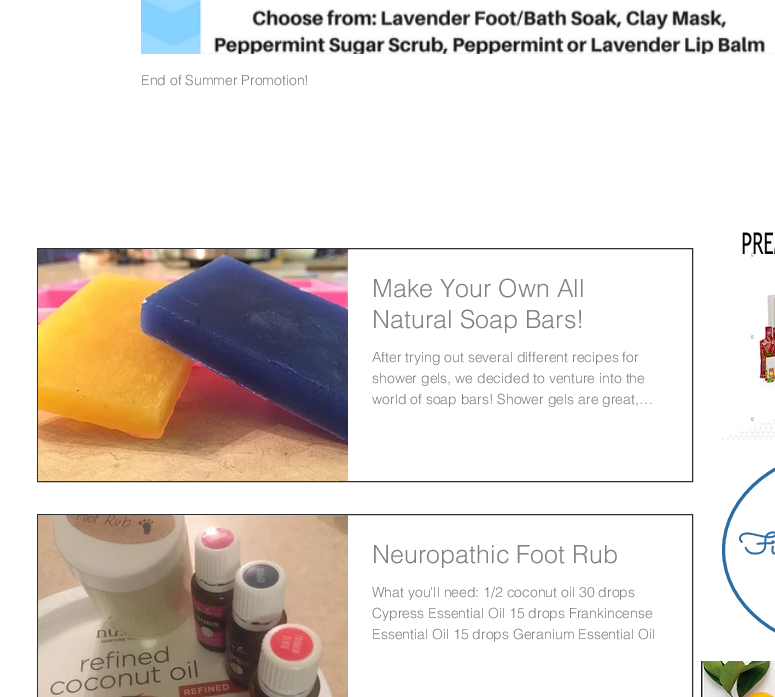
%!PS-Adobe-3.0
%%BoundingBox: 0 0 775 697
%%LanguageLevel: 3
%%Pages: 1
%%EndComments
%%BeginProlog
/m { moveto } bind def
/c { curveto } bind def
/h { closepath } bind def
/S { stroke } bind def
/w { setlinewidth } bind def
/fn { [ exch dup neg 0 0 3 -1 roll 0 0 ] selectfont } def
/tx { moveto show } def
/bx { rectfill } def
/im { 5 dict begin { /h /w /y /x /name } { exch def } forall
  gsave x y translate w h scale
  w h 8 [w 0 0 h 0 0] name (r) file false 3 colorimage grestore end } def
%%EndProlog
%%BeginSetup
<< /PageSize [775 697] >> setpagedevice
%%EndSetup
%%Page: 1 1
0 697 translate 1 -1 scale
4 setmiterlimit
1 setgray
0 0 775 697 bx
(image1.raw) 141 53 634 1 im
(image0.raw) 141 0 634 54 im
/helvetica-Light 14 fn
0.506 setgray
(End of Summer Promotion!) 141 85 tx
0.184 0.18 0.18 setrgbcolor
37.5 248.5 655 233 rectstroke
(image2.raw) 38 249 310 232 im
/helvetica-Light 25 fn
0.506 setgray
(Make Your Own All) 372 297 tx
(Natural Soap Bars!) 372 328 tx
/helvetica-Light 14 fn
(After trying out several different recipes for) 372 362 tx
(shower gels, we decided to venture into the) 372 383 tx
(world of soap bars! Shower gels are great,…) 372 404 tx
0.184 0.18 0.18 setrgbcolor
37.5 514.5 655 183 rectstroke
(image3.raw) 38 515 310 182 im
/helvetica-Light 25 fn
0.506 setgray
(Neuropathic Foot Rub) 372 563 tx
/helvetica-Light 14 fn
(What you'll need: 1/2 coconut oil 30 drops) 372 597 tx
(Cypress Essential Oil 15 drops Frankincense) 372 618 tx
(Essential Oil 15 drops Geranium Essential Oil) 372 639 tx
(image4.raw) 721 232 54 208 im
0.169 0.424 0.639 setrgbcolor
3 w
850.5 449.5 m 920.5 449.5 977.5 494.5 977.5 550 c 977.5 605.5 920.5 650.5 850.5 650.5 c 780.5 650.5 723.5 605.5 723.5 550 c 723.5 494.5 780.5 449.5 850.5 449.5 c h S
/Sacramento-Bold 30 fn
(Fi) 739 554 tx
(image5.raw) 701 661 74 36 im
showpage
%%EOF
